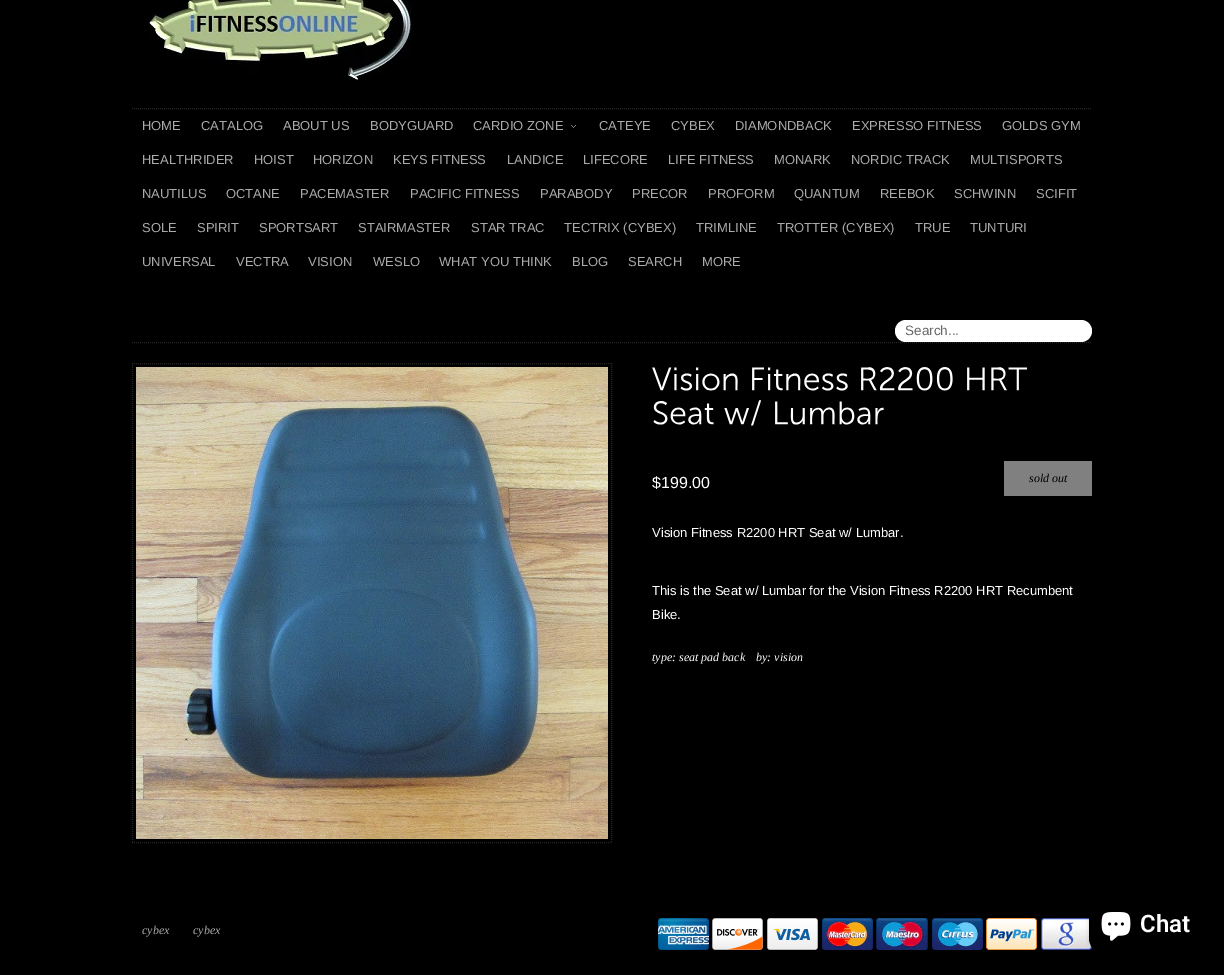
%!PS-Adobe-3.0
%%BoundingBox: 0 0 1224 975
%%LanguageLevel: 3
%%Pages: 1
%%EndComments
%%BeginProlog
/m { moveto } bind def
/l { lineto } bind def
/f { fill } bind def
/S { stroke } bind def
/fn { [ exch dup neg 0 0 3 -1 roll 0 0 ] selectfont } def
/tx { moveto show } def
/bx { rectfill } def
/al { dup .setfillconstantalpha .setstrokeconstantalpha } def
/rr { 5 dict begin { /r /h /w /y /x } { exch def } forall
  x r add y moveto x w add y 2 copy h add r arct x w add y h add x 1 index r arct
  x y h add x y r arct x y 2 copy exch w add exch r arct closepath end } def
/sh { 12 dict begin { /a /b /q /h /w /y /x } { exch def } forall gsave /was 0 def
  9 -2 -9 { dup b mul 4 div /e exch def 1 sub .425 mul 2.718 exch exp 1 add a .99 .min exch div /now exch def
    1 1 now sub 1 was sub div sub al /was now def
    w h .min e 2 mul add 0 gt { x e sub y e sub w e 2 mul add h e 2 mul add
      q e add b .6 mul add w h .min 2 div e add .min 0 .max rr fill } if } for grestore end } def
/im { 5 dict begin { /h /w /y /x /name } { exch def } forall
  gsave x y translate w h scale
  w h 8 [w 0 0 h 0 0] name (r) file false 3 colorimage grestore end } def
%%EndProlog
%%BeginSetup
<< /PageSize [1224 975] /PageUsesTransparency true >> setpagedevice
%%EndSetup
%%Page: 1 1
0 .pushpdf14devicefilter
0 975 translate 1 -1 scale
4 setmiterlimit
0 setgray
0 0 1224 975 bx
(image0.raw) 148 0 264 80 im
0.149 setgray
[1 1] 0 setdash
132 108.5 m 1092 108.5 l S
132 342.5 m 1092 342.5 l S
/LiberationSans-Regular 13 fn
0.667 setgray
(HOME) 142 130 tx
(CATALOG) 201 130 tx
(ABOUT US) 283 130 tx
(BODYGUARD) 370 130 tx
(image1.raw) 571 125 5 3 im
(CARDIO ZONE) 473 130 tx
(CATEYE) 599 130 tx
(CYBEX) 671 130 tx
(DIAMONDBACK) 735 130 tx
(EXPRESSO FITNESS) 852 130 tx
(GOLDS GYM) 1002 130 tx
(HEALTHRIDER) 142 164 tx
(HOIST) 254 164 tx
(HORIZON) 313 164 tx
(KEYS FITNESS) 393 164 tx
(LANDICE) 507 164 tx
(LIFECORE) 583 164 tx
(LIFE FITNESS) 668 164 tx
(MONARK) 774 164 tx
(NORDIC TRACK) 851 164 tx
(MULTISPORTS) 970 164 tx
(NAUTILUS) 142 198 tx
(OCTANE) 226 198 tx
(PACEMASTER) 300 198 tx
(PACIFIC FITNESS) 410 198 tx
(PARABODY) 540 198 tx
(PRECOR) 632 198 tx
(PROFORM) 708 198 tx
(QUANTUM) 794 198 tx
(REEBOK) 880 198 tx
(SCHWINN) 954 198 tx
(SCIFIT) 1036 198 tx
(SOLE) 142 232 tx
(SPIRIT) 197 232 tx
(SPORTSART) 259 232 tx
(STAIRMASTER) 358 232 tx
(STAR TRAC) 471 232 tx
(TECTRIX \(CYBEX\)) 564 232 tx
(TRIMLINE) 696 232 tx
(TROTTER \(CYBEX\)) 777 232 tx
(TRUE) 915 232 tx
(TUNTURI) 970 232 tx
(UNIVERSAL) 142 266 tx
(VECTRA) 236 266 tx
(VISION) 308 266 tx
(WESLO) 373 266 tx
(WHAT YOU THINK) 439 266 tx
(BLOG) 572 266 tx
(SEARCH) 628 266 tx
(MORE) 702 266 tx
1 setgray
895 320 197 22 11 rr f
/LiberationSans-Regular 13.5 fn
0.4 setgray
(Search...) 905 335 tx
0.149 setgray
132 363.5 m 612 363.5 l S
611.5 363 m 611.5 843 l S
132 842.5 m 612 842.5 l S
132.5 363 m 132.5 843 l S
(image2.raw) 136 367 472 472 im
(image3.raw) 652 367 86 24 im
(image4.raw) 752 367 96 24 im
(image5.raw) 861 367 92 24 im
(image6.raw) 967 367 61 24 im
(image7.raw) 653 401 61 24 im
(image8.raw) 724 400 38 26 im
(image9.raw) 775 401 109 24 im
/LiberationSans-Regular 16 fn
1 setgray
($199.00) 652 488 tx
0.502 setgray
1004 461 88 35 bx
/LiberationSerif-Italic 12 fn
0 setgray
(sold out) 1029 482 tx
/LiberationSans-Regular 13 fn
1 setgray
(Vision Fitness R2200 HRT Seat w/ Lumbar.) 652 537 tx
(This is the Seat w/ Lumbar for the Vision Fitness R2200 HRT Recumbent) 652 595 tx
(Bike.) 652 619 tx
/LiberationSerif-Italic 12 fn
(type: seat pad back) 652 661 tx
(by: vision) 756 661 tx
0.667 setgray
(cybex) 142 934 tx
(cybex) 193 934 tx
(image10.raw) 658 918 51 32 im
(image11.raw) 712 918 51 32 im
(image12.raw) 767 918 51 32 im
(image13.raw) 822 918 51 32 im
(image14.raw) 876 918 52 32 im
(image15.raw) 932 918 51 32 im
(image16.raw) 986 918 51 32 im
(image17.raw) 1041 918 51 32 im
0 setgray
1089 894 113 60 16 2.5 0.15 sh
1089 894 113 60 16 rr f
(image18.raw) 1101 912 30 29 im
/Roboto-SemiBold 24 fn
1 setgray
(Chat) 1140 932 tx
.poppdf14devicefilter showpage
%%EOF
